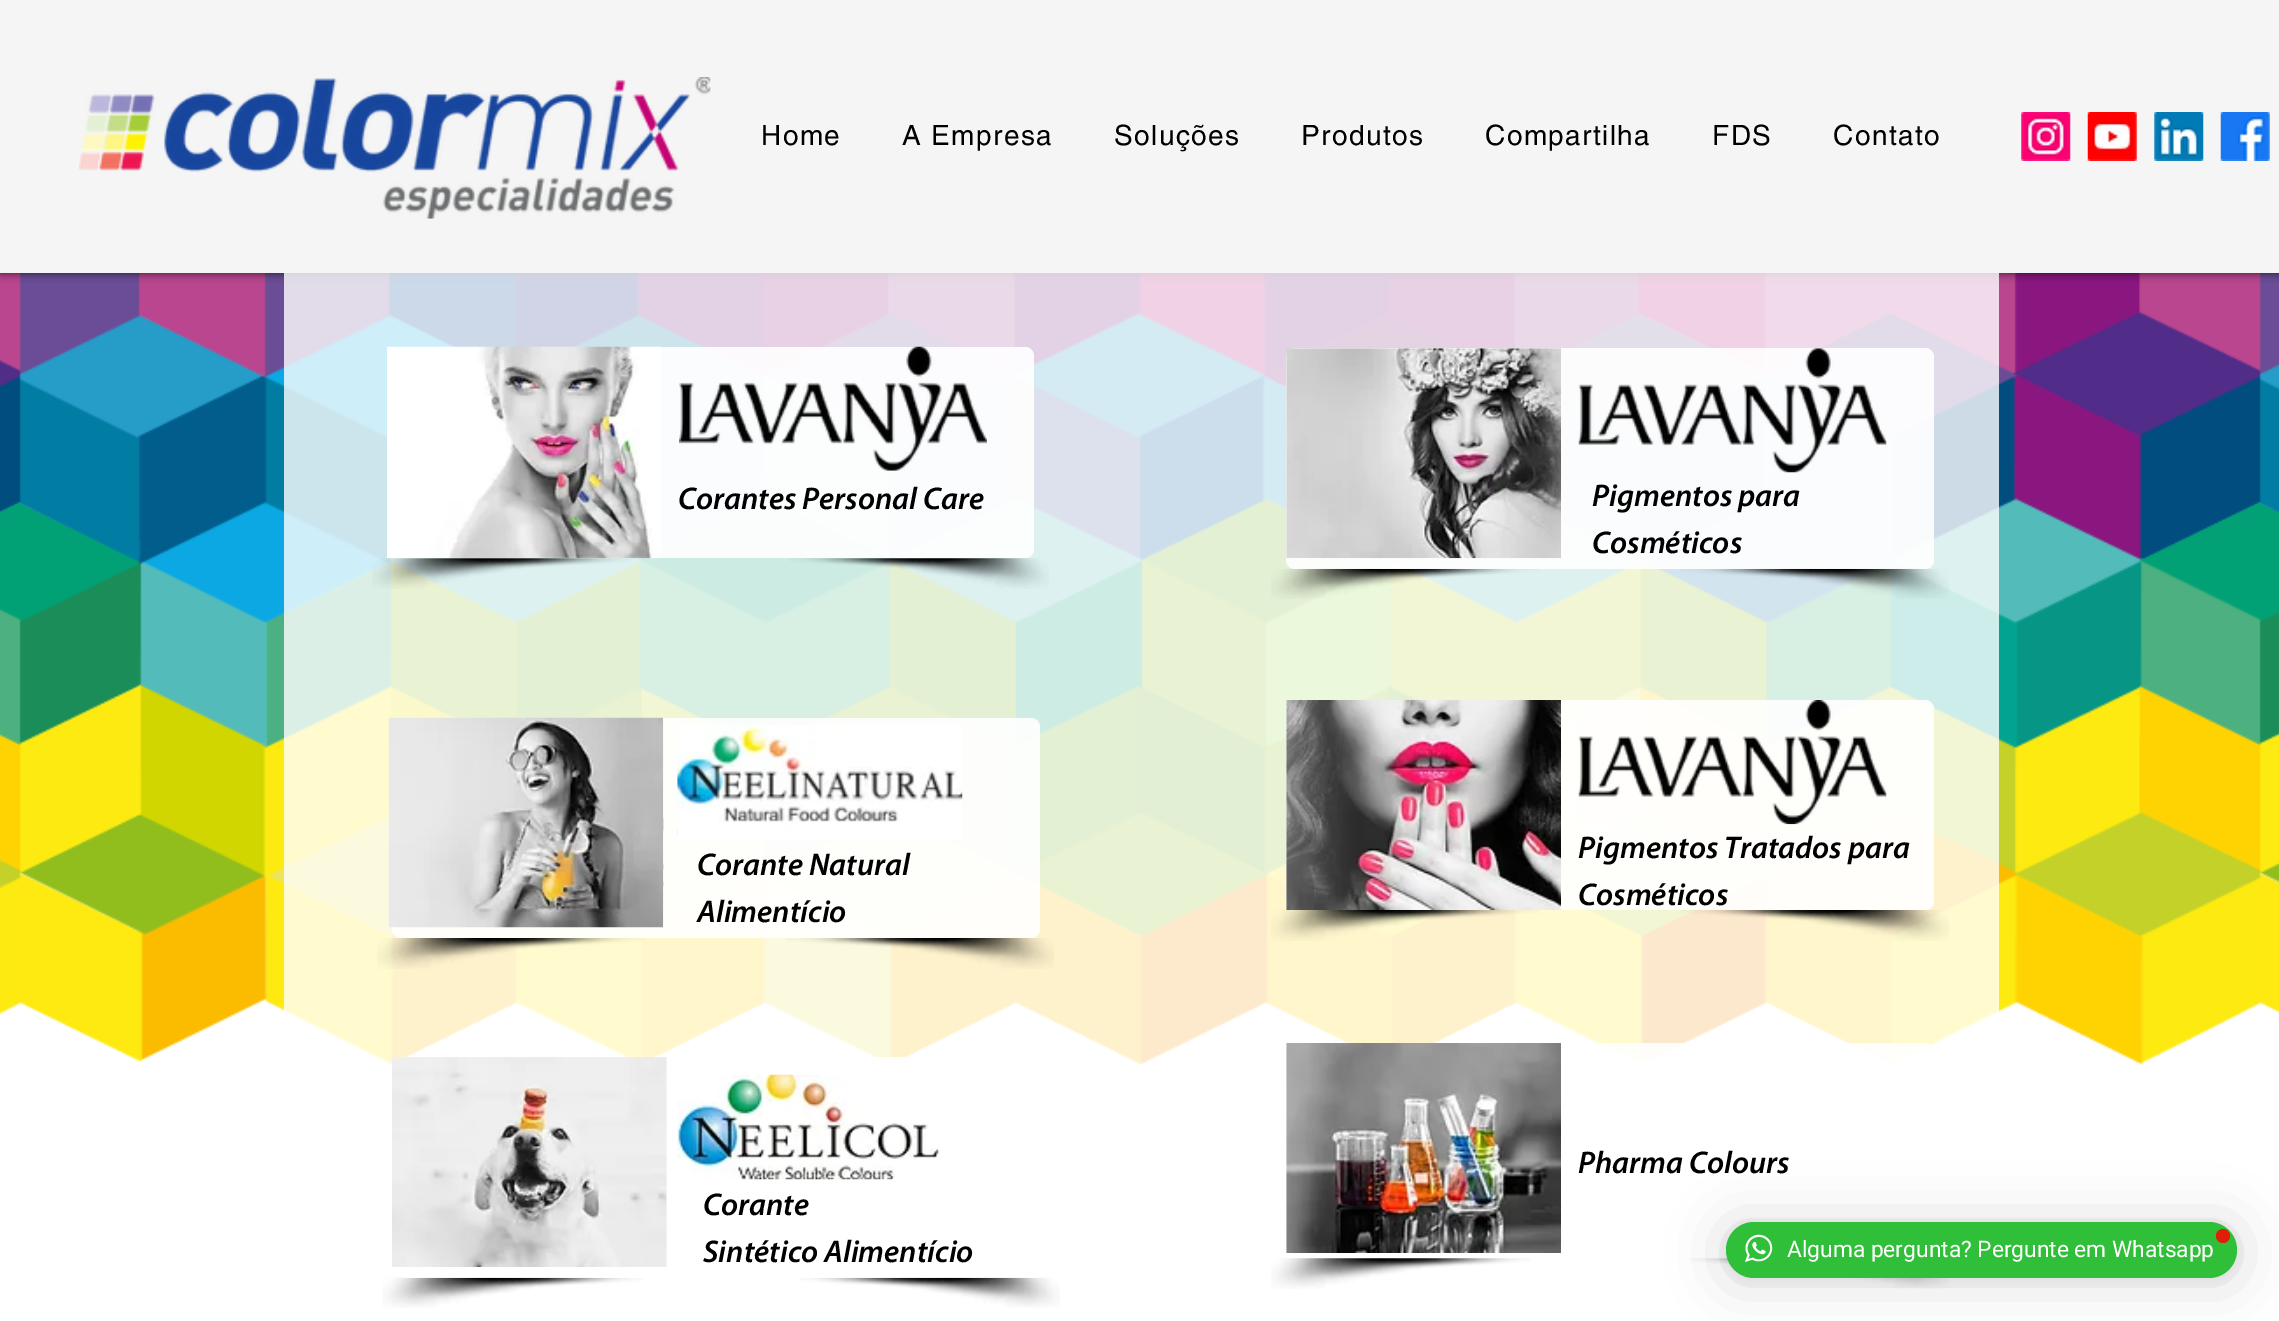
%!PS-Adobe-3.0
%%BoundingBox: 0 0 2279 1321
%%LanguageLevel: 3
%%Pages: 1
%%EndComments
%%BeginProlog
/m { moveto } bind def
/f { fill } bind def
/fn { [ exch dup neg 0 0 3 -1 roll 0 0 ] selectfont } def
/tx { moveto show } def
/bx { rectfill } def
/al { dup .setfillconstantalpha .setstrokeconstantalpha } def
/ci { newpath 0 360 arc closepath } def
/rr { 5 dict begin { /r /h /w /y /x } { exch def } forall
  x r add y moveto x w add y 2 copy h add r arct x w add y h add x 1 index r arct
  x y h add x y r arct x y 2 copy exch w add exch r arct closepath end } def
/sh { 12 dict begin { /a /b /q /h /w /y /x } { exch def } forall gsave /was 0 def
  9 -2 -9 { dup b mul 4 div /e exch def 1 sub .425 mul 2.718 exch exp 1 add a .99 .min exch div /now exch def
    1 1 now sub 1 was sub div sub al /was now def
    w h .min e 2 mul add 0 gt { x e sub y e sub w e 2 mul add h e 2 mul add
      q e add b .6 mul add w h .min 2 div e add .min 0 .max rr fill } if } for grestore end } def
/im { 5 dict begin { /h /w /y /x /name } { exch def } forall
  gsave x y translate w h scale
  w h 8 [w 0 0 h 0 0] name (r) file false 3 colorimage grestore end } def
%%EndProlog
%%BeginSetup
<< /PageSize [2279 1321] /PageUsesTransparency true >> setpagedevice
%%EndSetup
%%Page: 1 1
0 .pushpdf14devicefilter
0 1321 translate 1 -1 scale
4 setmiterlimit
1 setgray
0 0 2279 1321 bx
(image28.raw) 0 273 2279 793 im
0 setgray
0 0 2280 273 0 4.5 0.7 sh
0.961 setgray
0 0 2279 273 bx
(image0.raw) 79 77 632 142 im
/helvetica-Regular 28 fn
0 setgray
761 145 m 1.4 0 (Home) ashow
902 145 m 1.4 0 (A Empresa) ashow
1114 145 m 1.4 0 (Soluções) ashow
1301 145 m 1.4 0 (Produtos) ashow
1485 145 m 1.4 0 (Compartilha) ashow
1712 145 m 1.4 0 (FDS) ashow
1833 145 m 1.4 0 (Contato) ashow
(image1.raw) 2021 112 50 49 im
(image2.raw) 2087 112 50 49 im
(image3.raw) 2154 112 50 49 im
(image4.raw) 2220 112 50 49 im
0.8 al
1 setgray
284 273 1715 793 bx
0.9 al
387 347 647 211 9 rr f
1 al
(image7.raw) 372 558 260 31 im
(image5.raw) 387 346 274 213 im
(image6.raw) 679 346 308 125 im
(image8.raw) 789 558 260 31 im
(image11.raw) 1271 568 269 31 im
(image12.raw) 1680 568 269 31 im
0.9 al
1286 348 648 221 9 rr f
1 al
(image9.raw) 1286 348 275 211 im
(image10.raw) 1578 348 309 125 im
/Myriad-SemiBoldItalic 31.5 fn
0 setgray
(Pigmentos para) 1592 506 tx
(Cosméticos) 1592 553 tx
(Corantes Personal Care) 678 509 tx
0.9 al
1 setgray
392 718 648 220 9 rr f
1 al
(image13.raw) 388 717 276 211 im
0.9 al
1286 700 648 210 9 rr f
1 al
(image14.raw) 1286 700 275 210 im
(image15.raw) 1578 700 309 125 im
(image16.raw) 1271 910 269 31 im
(image17.raw) 1680 910 269 31 im
(image18.raw) 677 725 286 115 im
0 setgray
(Corante Natural) 697 875 tx
(Alimentício) 697 922 tx
(image19.raw) 377 938 268 31 im
(image20.raw) 786 938 268 31 im
(Pigmentos Tratados para) 1578 858 tx
(Cosméticos) 1578 905 tx
(image26.raw) 382 1277 261 31 im
(image27.raw) 799 1277 261 31 im
0.9 al
1 setgray
397 1057 648 221 9 rr f
1 al
(image21.raw) 392 1057 275 210 im
0.9 al
1286 1043 648 215 9 rr f
1 al
(image22.raw) 1286 1043 275 210 im
0 setgray
(Pharma Colours) 1578 1173 tx
(image23.raw) 1271 1258 260 31 im
(image24.raw) 1689 1258 260 31 im
(image25.raw) 677 1074 262 106 im
(Corante) 703 1215 tx
(Sintético Alimentício) 703 1262 tx
1726 1225 511 56 28 28 0.16 sh
1726 1223 511 56 28 5 0.06 sh
0.188 0.749 0.224 setrgbcolor
1726 1222 511 56 28 rr f
(image29.raw) 1745 1234 28 28 im
/Roboto-Regular 22.75 fn
1 setgray
(Alguma pergunta? Pergunte em Whatsapp) 1787 1257 tx
0.878 0.114 0.035 setrgbcolor
2223 1236 7 ci f
.poppdf14devicefilter showpage
%%EOF
